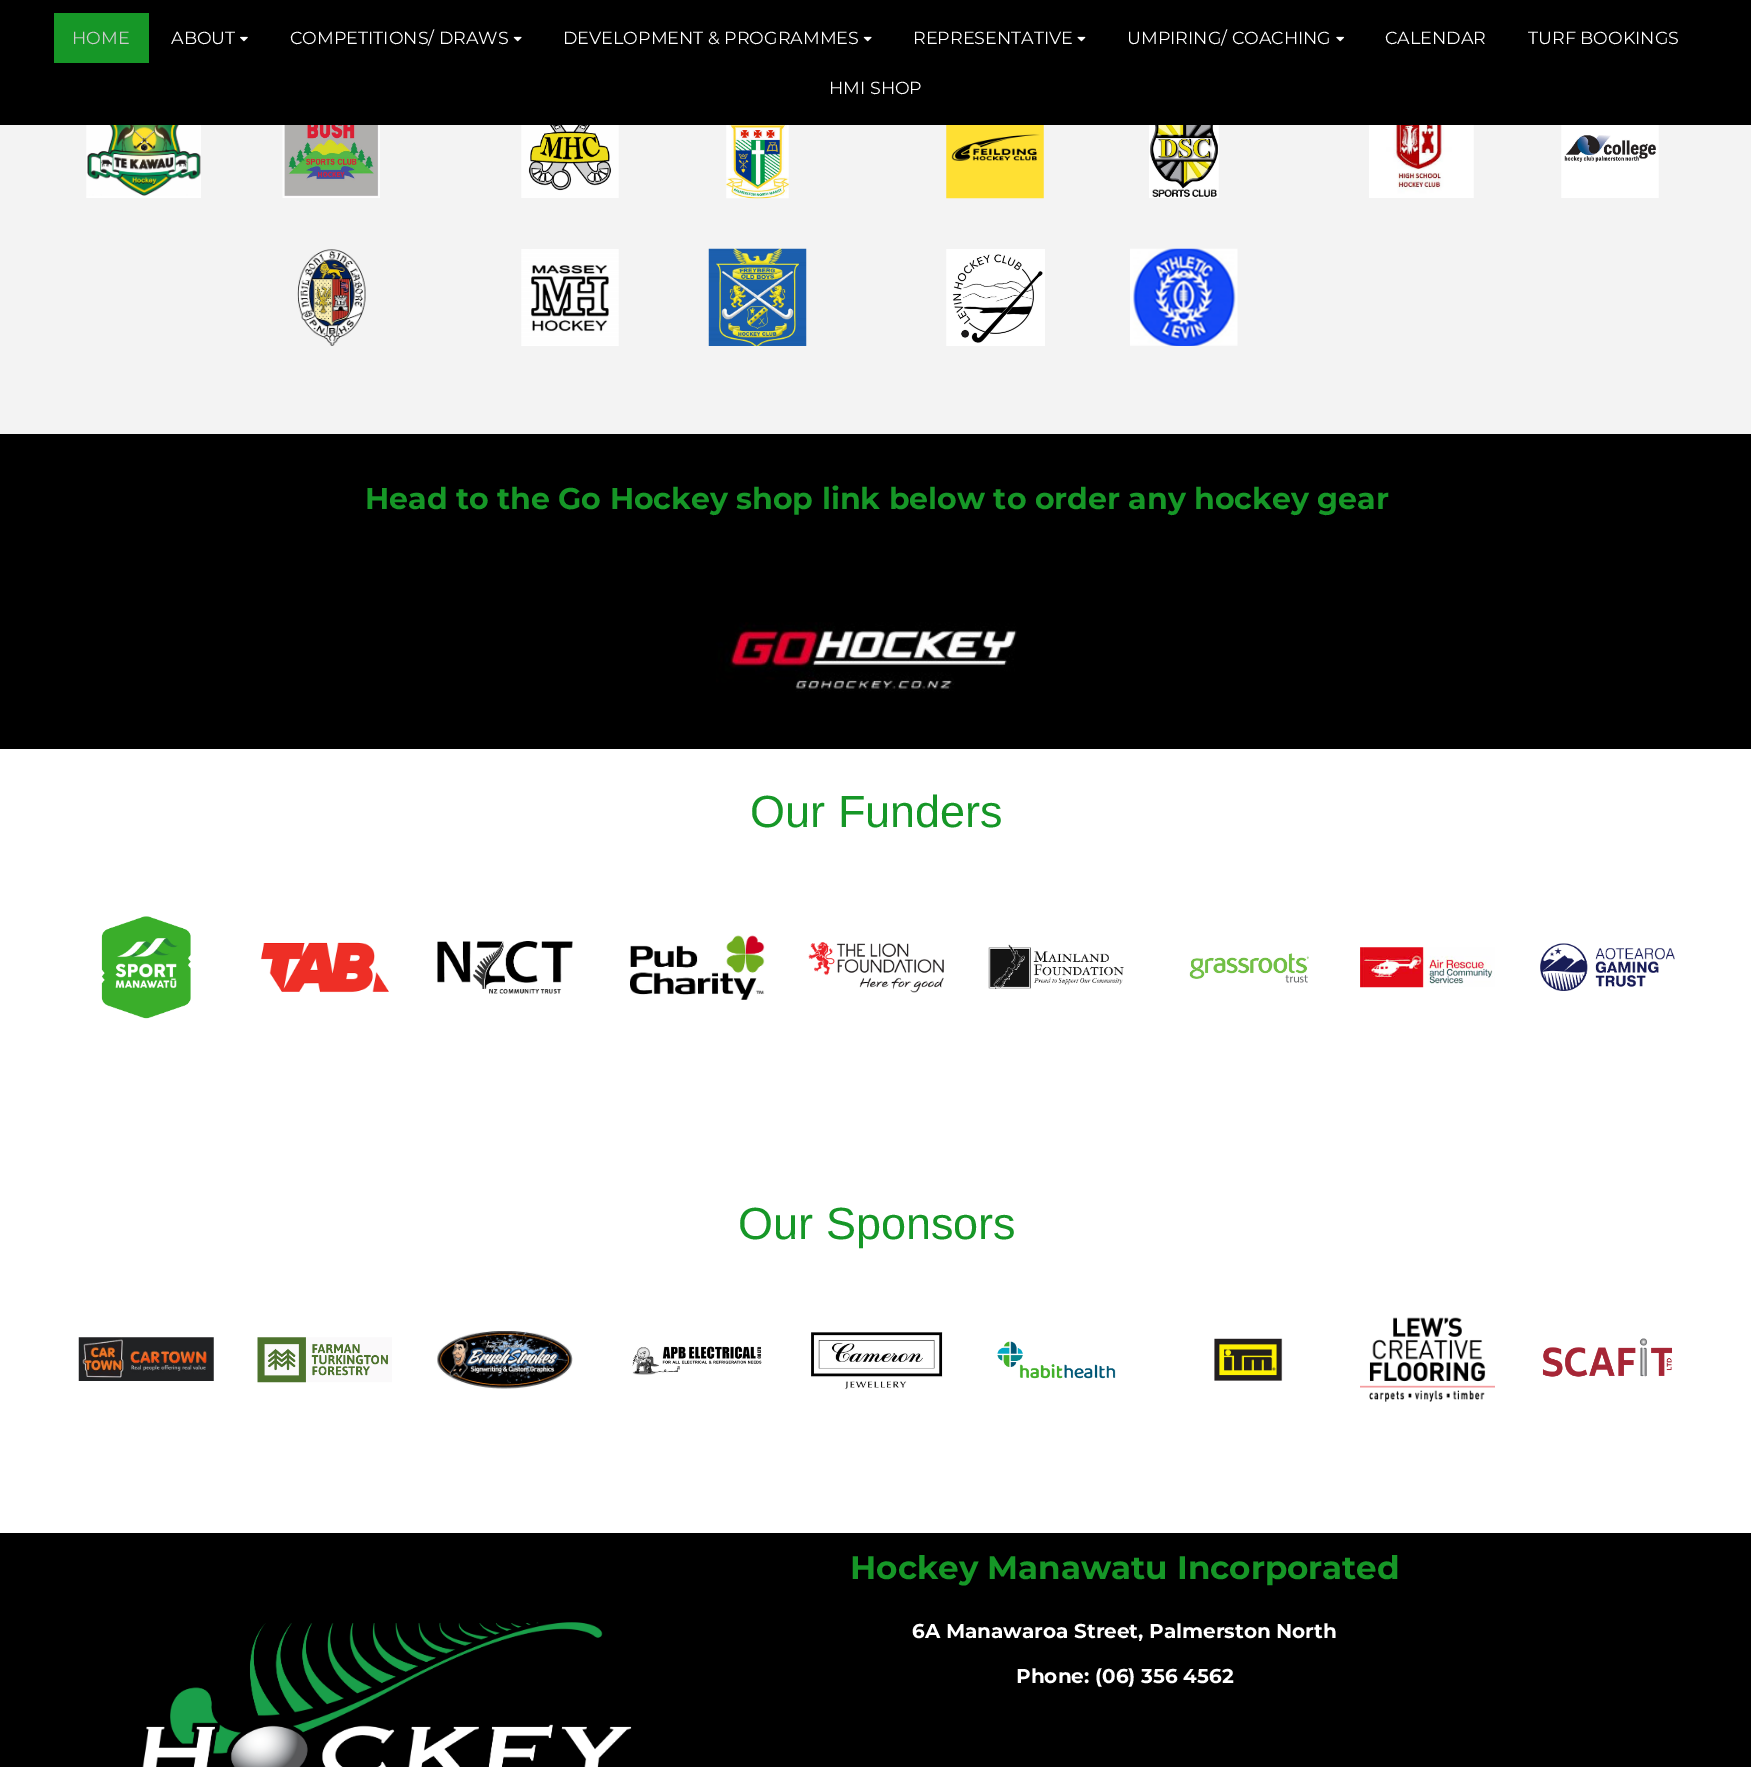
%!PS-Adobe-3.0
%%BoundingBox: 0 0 1751 1767
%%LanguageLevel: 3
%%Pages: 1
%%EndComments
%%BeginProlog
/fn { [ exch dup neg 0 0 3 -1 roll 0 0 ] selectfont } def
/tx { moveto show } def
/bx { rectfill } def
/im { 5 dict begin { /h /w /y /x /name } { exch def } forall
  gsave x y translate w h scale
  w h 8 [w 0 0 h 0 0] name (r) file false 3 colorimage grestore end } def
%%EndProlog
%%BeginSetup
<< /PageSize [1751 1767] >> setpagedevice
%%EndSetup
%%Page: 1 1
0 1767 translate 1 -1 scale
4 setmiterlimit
0 setgray
0 0 1751 1767 bx
0.086 0.592 0.153 setrgbcolor
54 13 95 50 bx
/Montserrat-Regular 17.5 fn
0.8 setgray
(HOME) 72 44 tx
1 setgray
(ABOUT) 171 44 tx
(image0.raw) 240 36 8 6 im
(COMPETITIONS/ DRAWS) 290 44 tx
(image1.raw) 513 36 9 6 im
(DEVELOPMENT & PROGRAMMES) 563 44 tx
(image1.raw) 863 36 9 6 im
(REPRESENTATIVE) 913 44 tx
(image2.raw) 1077 36 9 6 im
(UMPIRING/ COACHING) 1127 44 tx
(image3.raw) 1336 36 9 6 im
(CALENDAR) 1385 44 tx
(TURF BOOKINGS) 1528 44 tx
(HMI SHOP) 829 94 tx
0.953 setgray
0 125 1751 309 bx
(image4.raw) 86 125 115 73 im
(image5.raw) 282 125 98 73 im
(image6.raw) 297 249 69 97 im
(image7.raw) 521 125 98 73 im
(image8.raw) 521 249 98 97 im
(image9.raw) 726 125 63 74 im
(image10.raw) 708 248 99 98 im
(image11.raw) 946 125 98 74 im
(image12.raw) 946 249 99 97 im
(image13.raw) 1149 125 70 73 im
(image14.raw) 1130 248 108 98 im
(image15.raw) 1369 125 105 73 im
(image16.raw) 1561 125 98 73 im
/Montserrat-Bold 30 fn
0.086 0.592 0.153 setrgbcolor
(Head to the Go Hockey shop link below to order any hockey gear) 365 509 tx
(image17.raw) 716 622 301 70 im
1 setgray
0 749 1751 784 bx
/LiberationSans-Regular 45 fn
0.086 0.592 0.153 setrgbcolor
(Our Funders) 750 827 tx
(image18.raw) 101 916 90 103 im
(image19.raw) 260 942 129 51 im
(image20.raw) 437 941 136 53 im
(image21.raw) 630 935 135 65 im
(image22.raw) 808 942 136 51 im
(image23.raw) 988 944 136 45 im
(image24.raw) 1189 953 120 30 im
(image25.raw) 1360 947 135 41 im
(image26.raw) 1540 943 135 48 im
(Our Sponsors) 738 1239 tx
(image27.raw) 78 1337 136 44 im
(image28.raw) 257 1337 135 46 im
(image29.raw) 437 1331 136 58 im
(image30.raw) 632 1346 130 29 im
(image31.raw) 811 1332 132 58 im
(image32.raw) 997 1341 119 38 im
(image33.raw) 1214 1338 69 43 im
(image34.raw) 1360 1317 135 85 im
(image35.raw) 1542 1338 130 39 im
(image36.raw) 142 1622 490 145 im
/Montserrat-Bold 32.5 fn
(Hockey Manawatu Incorporated) 850 1579 tx
/Montserrat-Bold 20 fn
1 setgray
(6A Manawaroa Street, Palmerston North) 912 1638 tx
(Phone: \(06\) 356 4562) 1016 1683 tx
showpage
%%EOF
